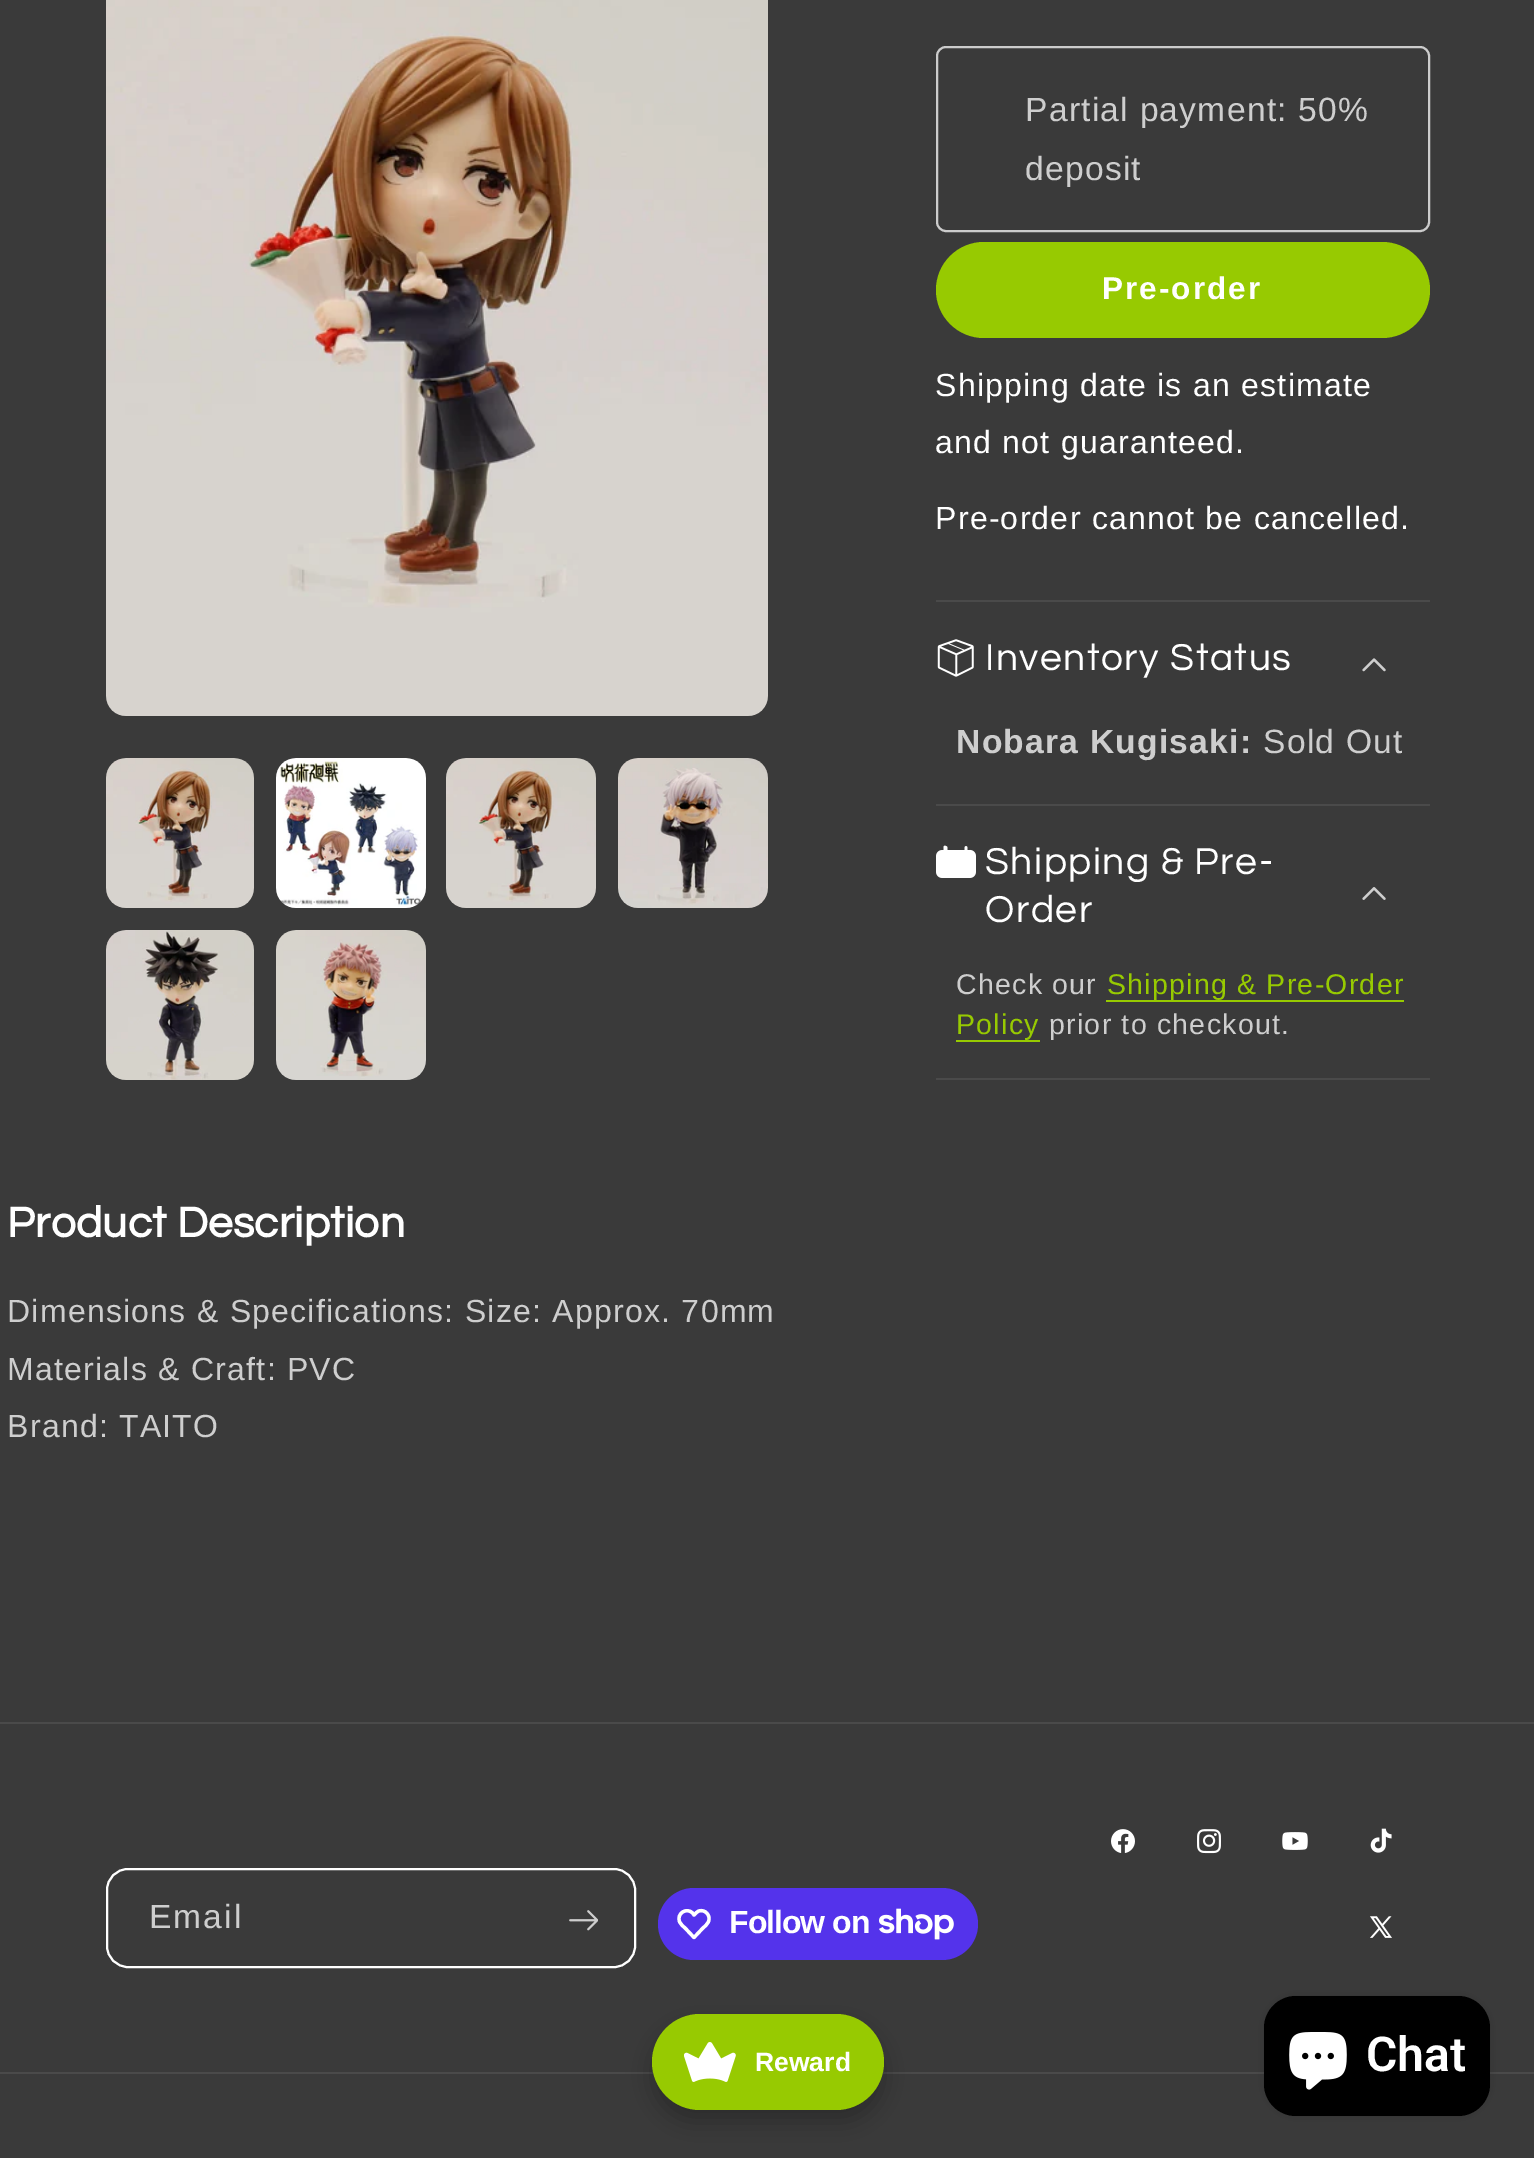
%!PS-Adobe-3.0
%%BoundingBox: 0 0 1534 2158
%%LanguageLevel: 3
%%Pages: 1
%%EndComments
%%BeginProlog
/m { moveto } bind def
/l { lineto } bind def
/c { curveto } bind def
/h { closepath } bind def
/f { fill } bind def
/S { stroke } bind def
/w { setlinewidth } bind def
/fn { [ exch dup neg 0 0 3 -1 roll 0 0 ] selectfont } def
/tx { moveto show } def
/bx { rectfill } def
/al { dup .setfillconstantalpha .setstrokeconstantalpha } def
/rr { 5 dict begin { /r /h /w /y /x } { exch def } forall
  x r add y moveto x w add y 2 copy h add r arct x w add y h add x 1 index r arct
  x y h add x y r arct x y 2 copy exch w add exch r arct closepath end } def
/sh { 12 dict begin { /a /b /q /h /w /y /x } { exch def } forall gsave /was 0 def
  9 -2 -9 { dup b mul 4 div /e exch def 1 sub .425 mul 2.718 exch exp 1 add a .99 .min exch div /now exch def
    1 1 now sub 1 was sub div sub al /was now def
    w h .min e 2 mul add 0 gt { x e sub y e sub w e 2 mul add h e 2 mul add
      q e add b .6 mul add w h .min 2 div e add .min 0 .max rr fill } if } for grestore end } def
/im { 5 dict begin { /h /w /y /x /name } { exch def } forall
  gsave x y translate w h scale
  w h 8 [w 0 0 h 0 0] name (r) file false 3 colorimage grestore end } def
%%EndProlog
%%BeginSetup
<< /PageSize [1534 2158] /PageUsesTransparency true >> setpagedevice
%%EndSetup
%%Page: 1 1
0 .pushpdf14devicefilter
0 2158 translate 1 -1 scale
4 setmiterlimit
0.227 setgray
0 0 1534 2158 bx
(image0.raw) 106 0 662 716 im
(image1.raw) 106 758 148 150 im
(image2.raw) 276 758 150 150 im
(image3.raw) 446 758 150 150 im
(image4.raw) 618 758 150 150 im
(image5.raw) 106 930 148 150 im
(image6.raw) 276 930 150 150 im
0.8 setgray
2 w
937 47 492 184 9 rr S
/LiberationSans-Regular 33.6 fn
0.808 setgray
1025 121 m 1.25 0 (Partial payment: 50%) ashow
1025 180 m 1.25 0 (deposit) ashow
0.592 0.792 0.004 setrgbcolor
936 242 494 96 48 rr f
/LiberationSans-Bold 31.5 fn
1 setgray
1102 299 m 2 0 (Pre-order) ashow
/LiberationSans-Regular 32 fn
935 396 m 1.25 0 (Shipping date is an estimate) ashow
935 453 m 1.25 0 (and not guaranteed.) ashow
935 529 m 1.25 0 (Pre-order cannot be cancelled.) ashow
0.29 setgray
936 600 494 2 bx
936 804 494 2 bx
(image7.raw) 937 639 37 38 im
/Questrial-Regular 39 fn
1 setgray
985 670 m 1.5 0 (Inventory Status) ashow
(image8.raw) 1362 658 24 14 im
/LiberationSans-Bold 33.6 fn
0.808 setgray
956 753 m 1.25 0 (Nobara Kugisaki:) ashow
/LiberationSans-Regular 33.6 fn
1263 753 m 1.25 0 (Sold Out) ashow
0.29 setgray
936 1078 494 2 bx
(image9.raw) 936 845 40 33 im
/Questrial-Regular 39 fn
1 setgray
985 874 m 1.5 0 (Shipping & Pre-) ashow
985 922 m 1.5 0 (Order) ashow
(image10.raw) 1362 887 24 13 im
/LiberationSans-Regular 28.5 fn
0.808 setgray
956 994 m 1.25 0 (Check our) ashow
0.592 0.792 0.004 setrgbcolor
1107 994 m 1.25 0 (Shipping & Pre-Order) ashow
1106 1000 298 2 bx
956 1034 m 1.25 0 (Policy) ashow
956 1040 84 2 bx
0.808 setgray
1049 1034 m 1.25 0 (prior to checkout.) ashow
/Questrial-Bold 44 fn
1 setgray
7 1237 m 0.4 0 (Product Description) ashow
/LiberationSans-Regular 32 fn
0.808 setgray
7 1322 m 1.25 0 (Dimensions & Specifications: Size: Approx. 70mm) ashow
7 1380 m 1.25 0 (Materials & Craft: PVC) ashow
7 1437 m 1.25 0 (Brand: TAITO) ashow
0.29 setgray
0 1722 1534 2 bx
1 setgray
107 1869 528 98 21 rr S
/LiberationSans-Regular 33.6 fn
0.808 setgray
149 1928 m 2 0 (Email) ashow
(image11.raw) 569 1910 29 21 im
0.329 0.2 0.922 setrgbcolor
658 1888 320 72 36 rr f
1 setgray
3.3 w
1 setlinejoin
692.5 1913 m 694 1915 l 695.5 1913.5 697 1911.5 699 1911 c 705 1909 711 1915.5 708.5 1921.5 c 707.5 1924.5 704.5 1926.5 702.5 1928.5 c 694 1937.5 l 685.5 1928.5 l 683.5 1926.5 680.5 1924.5 679.5 1921.5 c 676.5 1913.5 686.5 1907 692.5 1913 c h S
/LiberationSans-Bold 32 fn
729 1933 m -1 0 (Follow on) ashow
(image12.raw) 879 1908 75 32 im
(image13.raw) 1111 1829 24 24 im
(image14.raw) 1197 1829 24 25 im
(image15.raw) 1282 1832 26 18 im
(image16.raw) 1370 1828 22 25 im
(image17.raw) 1370 1916 22 22 im
0.29 setgray
0 2072 1534 2 bx
0 setgray
652 2026 232 96 48 12 0.25 sh
0.592 0.792 0.004 setrgbcolor
652 2014 232 96 48 rr f
(image18.raw) 684 2042 52 40 im
/LiberationSans-Bold 26.5 fn
1 setgray
(Reward) 755 2071 tx
0 setgray
1264 1996 226 120 32 5 0.15 sh
1264 1996 226 120 32 rr f
(image19.raw) 1289 2032 58 58 im
/Roboto-SemiBold 48 fn
1 setgray
(Chat) 1366 2071 tx
.poppdf14devicefilter showpage
%%EOF
